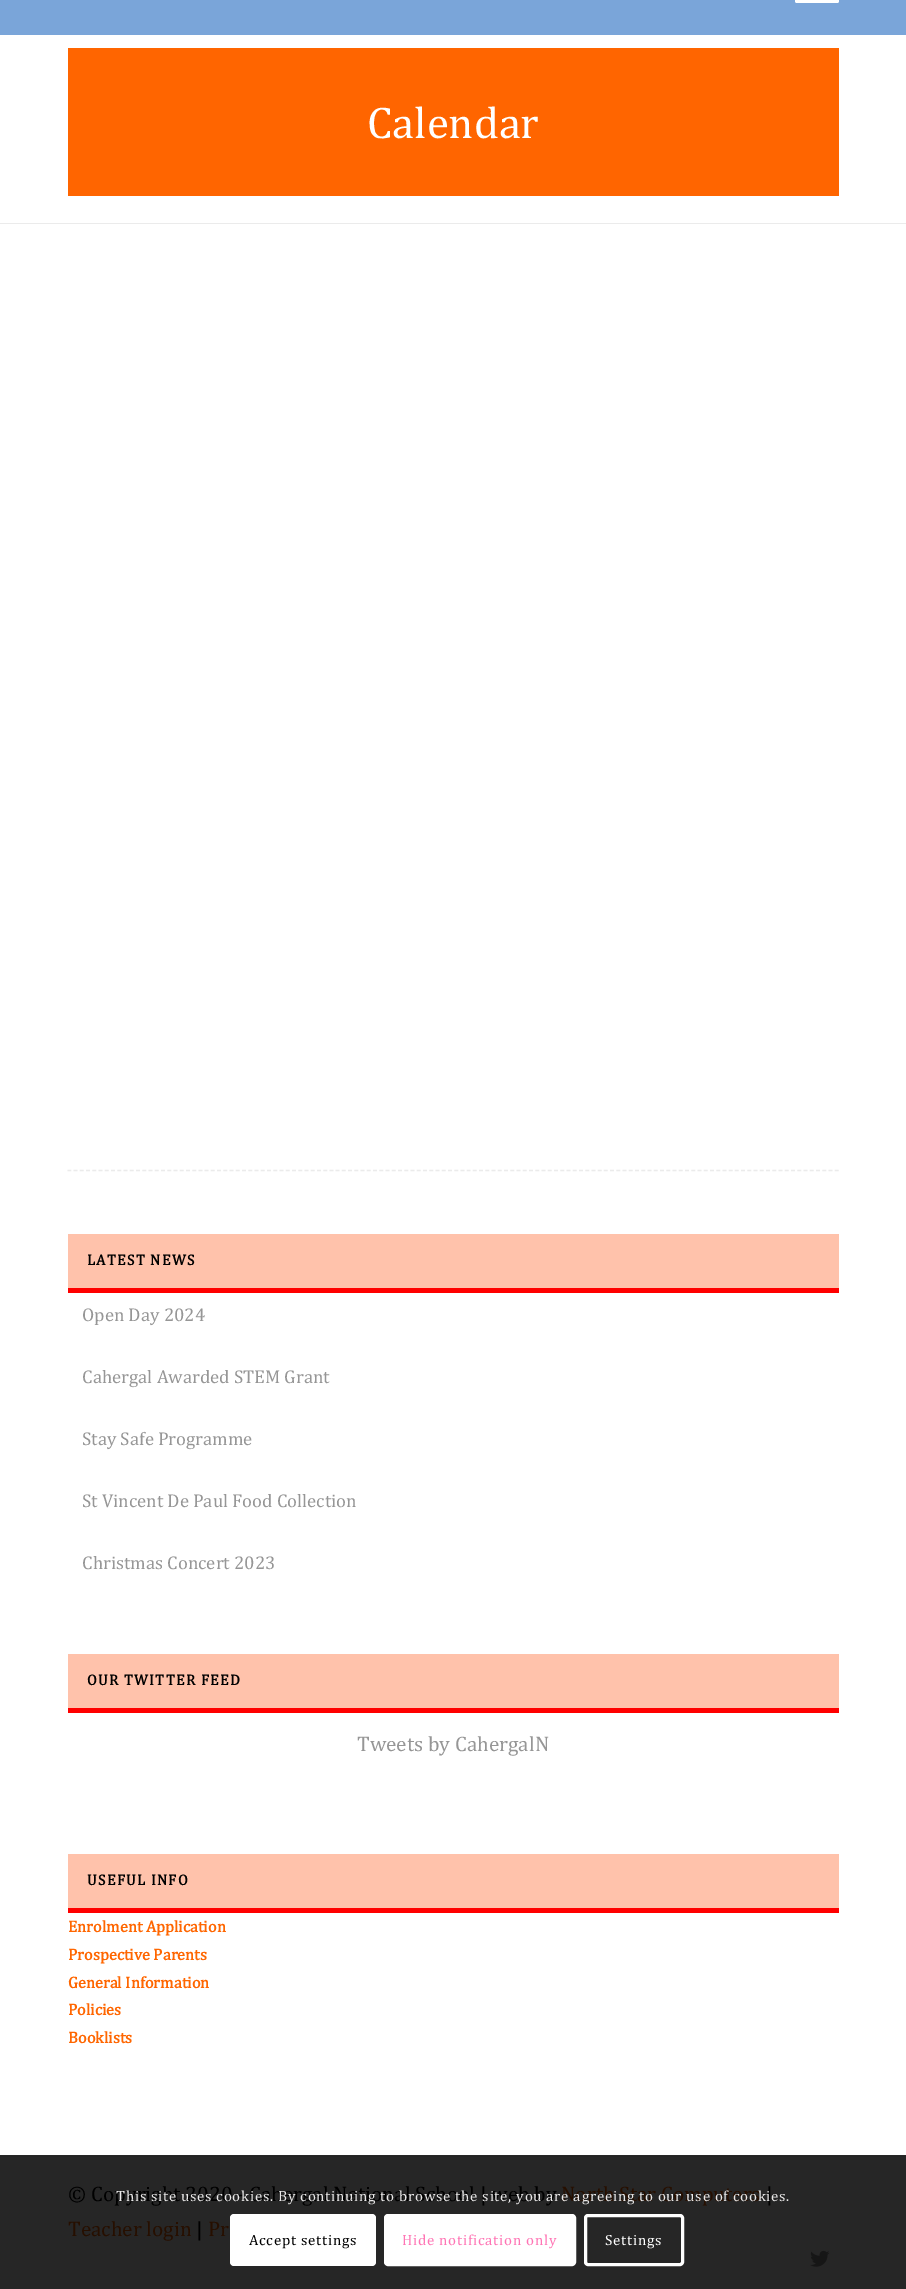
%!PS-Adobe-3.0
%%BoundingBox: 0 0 906 2289
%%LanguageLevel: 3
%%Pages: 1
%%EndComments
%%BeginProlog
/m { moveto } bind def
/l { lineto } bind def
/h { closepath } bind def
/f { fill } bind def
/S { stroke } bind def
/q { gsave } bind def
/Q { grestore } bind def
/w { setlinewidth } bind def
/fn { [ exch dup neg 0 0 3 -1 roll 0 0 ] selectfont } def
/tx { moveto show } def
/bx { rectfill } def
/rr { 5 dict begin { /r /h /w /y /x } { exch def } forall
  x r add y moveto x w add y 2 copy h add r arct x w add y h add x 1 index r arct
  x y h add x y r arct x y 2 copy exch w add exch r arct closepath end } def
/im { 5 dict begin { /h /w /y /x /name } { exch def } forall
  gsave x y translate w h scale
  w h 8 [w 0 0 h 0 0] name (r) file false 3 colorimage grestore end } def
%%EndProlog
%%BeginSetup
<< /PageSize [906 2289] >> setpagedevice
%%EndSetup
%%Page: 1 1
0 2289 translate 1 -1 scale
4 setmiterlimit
0.478 0.647 0.851 setrgbcolor
0 0 906 2289 bx
1 setgray
795 -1 44 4 2 rr f
0 35 906 188 bx
1 0.396 0 setrgbcolor
68 48 771 148 bx
/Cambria-Regular 45 fn
1 setgray
(Calendar) 367 138 tx
0 224 906 1931 bx
0.149 setgray
0 2155 906 1 bx
0.922 setgray
0 223 906 1 bx
1.2 w
[3.75 2.49] 0 setdash
67.5 1170.5 m 839 1170.5 l S
q
68 1171 771 987 rectclip
1 0 0 setrgbcolor
68 1288 m 68 1293 l 844 1293 l 844 1234 l 839 1234 l 839 1288 l h f
Q
1 0.761 0.671 setrgbcolor
68 1234 771 54 bx
/Cambria-Bold 15 fn
0 setgray
87 1265 m 1.25 0 (LATEST NEWS) ashow
/Cambria-Regular 18.75 fn
0.588 setgray
(Open Day 2024) 82 1321 tx
(Cahergal Awarded STEM Grant) 82 1383 tx
(Stay Safe Programme) 82 1445 tx
(St Vincent De Paul Food Collection) 82 1507 tx
(Christmas Concert 2023) 82 1569 tx
q
68 1171 771 987 rectclip
1 0 0 setrgbcolor
68 1708 m 68 1713 l 844 1713 l 844 1654 l 839 1654 l 839 1708 l h f
Q
1 0.761 0.671 setrgbcolor
68 1654 771 54 bx
/Cambria-Bold 15 fn
0 setgray
87 1685 m 1.25 0 (OUR TWITTER FEED) ashow
/Cambria-Regular 21.25 fn
0.588 setgray
(Tweets by CahergalN) 357 1751 tx
q
68 1171 771 987 rectclip
1 0 0 setrgbcolor
68 1908 m 68 1913 l 844 1913 l 844 1854 l 839 1854 l 839 1908 l h f
Q
1 0.761 0.671 setrgbcolor
68 1854 771 54 bx
/Cambria-Bold 15 fn
0 setgray
87 1885 m 1.25 0 (USEFUL INFO) ashow
/Cambria-Bold 16.25 fn
1 0.4 0 setrgbcolor
(Enrolment Application) 68 1932 tx
(Prospective Parents) 68 1960 tx
(General Information) 68 1988 tx
(Policies) 68 2015 tx
(Booklists) 68 2043 tx
0.149 setgray
0 2157 906 132 bx
0.137 setgray
0 2156 906 1 bx
/Cambria-Regular 21.25 fn
0 setgray
(© Copyright 2020 - Cahergal National School | web by) 68 2201 tx
0.149 0.059 0 setrgbcolor
(North Star Computers) 561 2201 tx
0 setgray
(|) 766 2201 tx
0.149 0.059 0 setrgbcolor
(Teacher login) 68 2236 tx
0 setgray
(|) 196 2236 tx
0.149 0.059 0 setrgbcolor
(Pr) 208 2236 tx
(image0.raw) 810 2250 20 17 im
/Cambria-Regular 15 fn
0.914 0.91 0.91 setrgbcolor
116 2201 m 0.75 0 (This site uses cookies. By continuing to browse the site, you are agreeing to our use of cookies.) ashow
1 setgray
230 2214 146 52 4 rr f
0 setgray
249 2245 m 0.75 0 (Accept settings) ashow
1 setgray
385.5 2215.5 189 49 2.5 rr q f Q
3 w
[] 0 setdash
S
1 0.459 0.71 setrgbcolor
402 2245 m 0.75 0 (Hide notification only) ashow
1 setgray
585.5 2215.5 97 49 2.5 rr S
605 2245 m 0.75 0 (Settings) ashow
showpage
%%EOF
